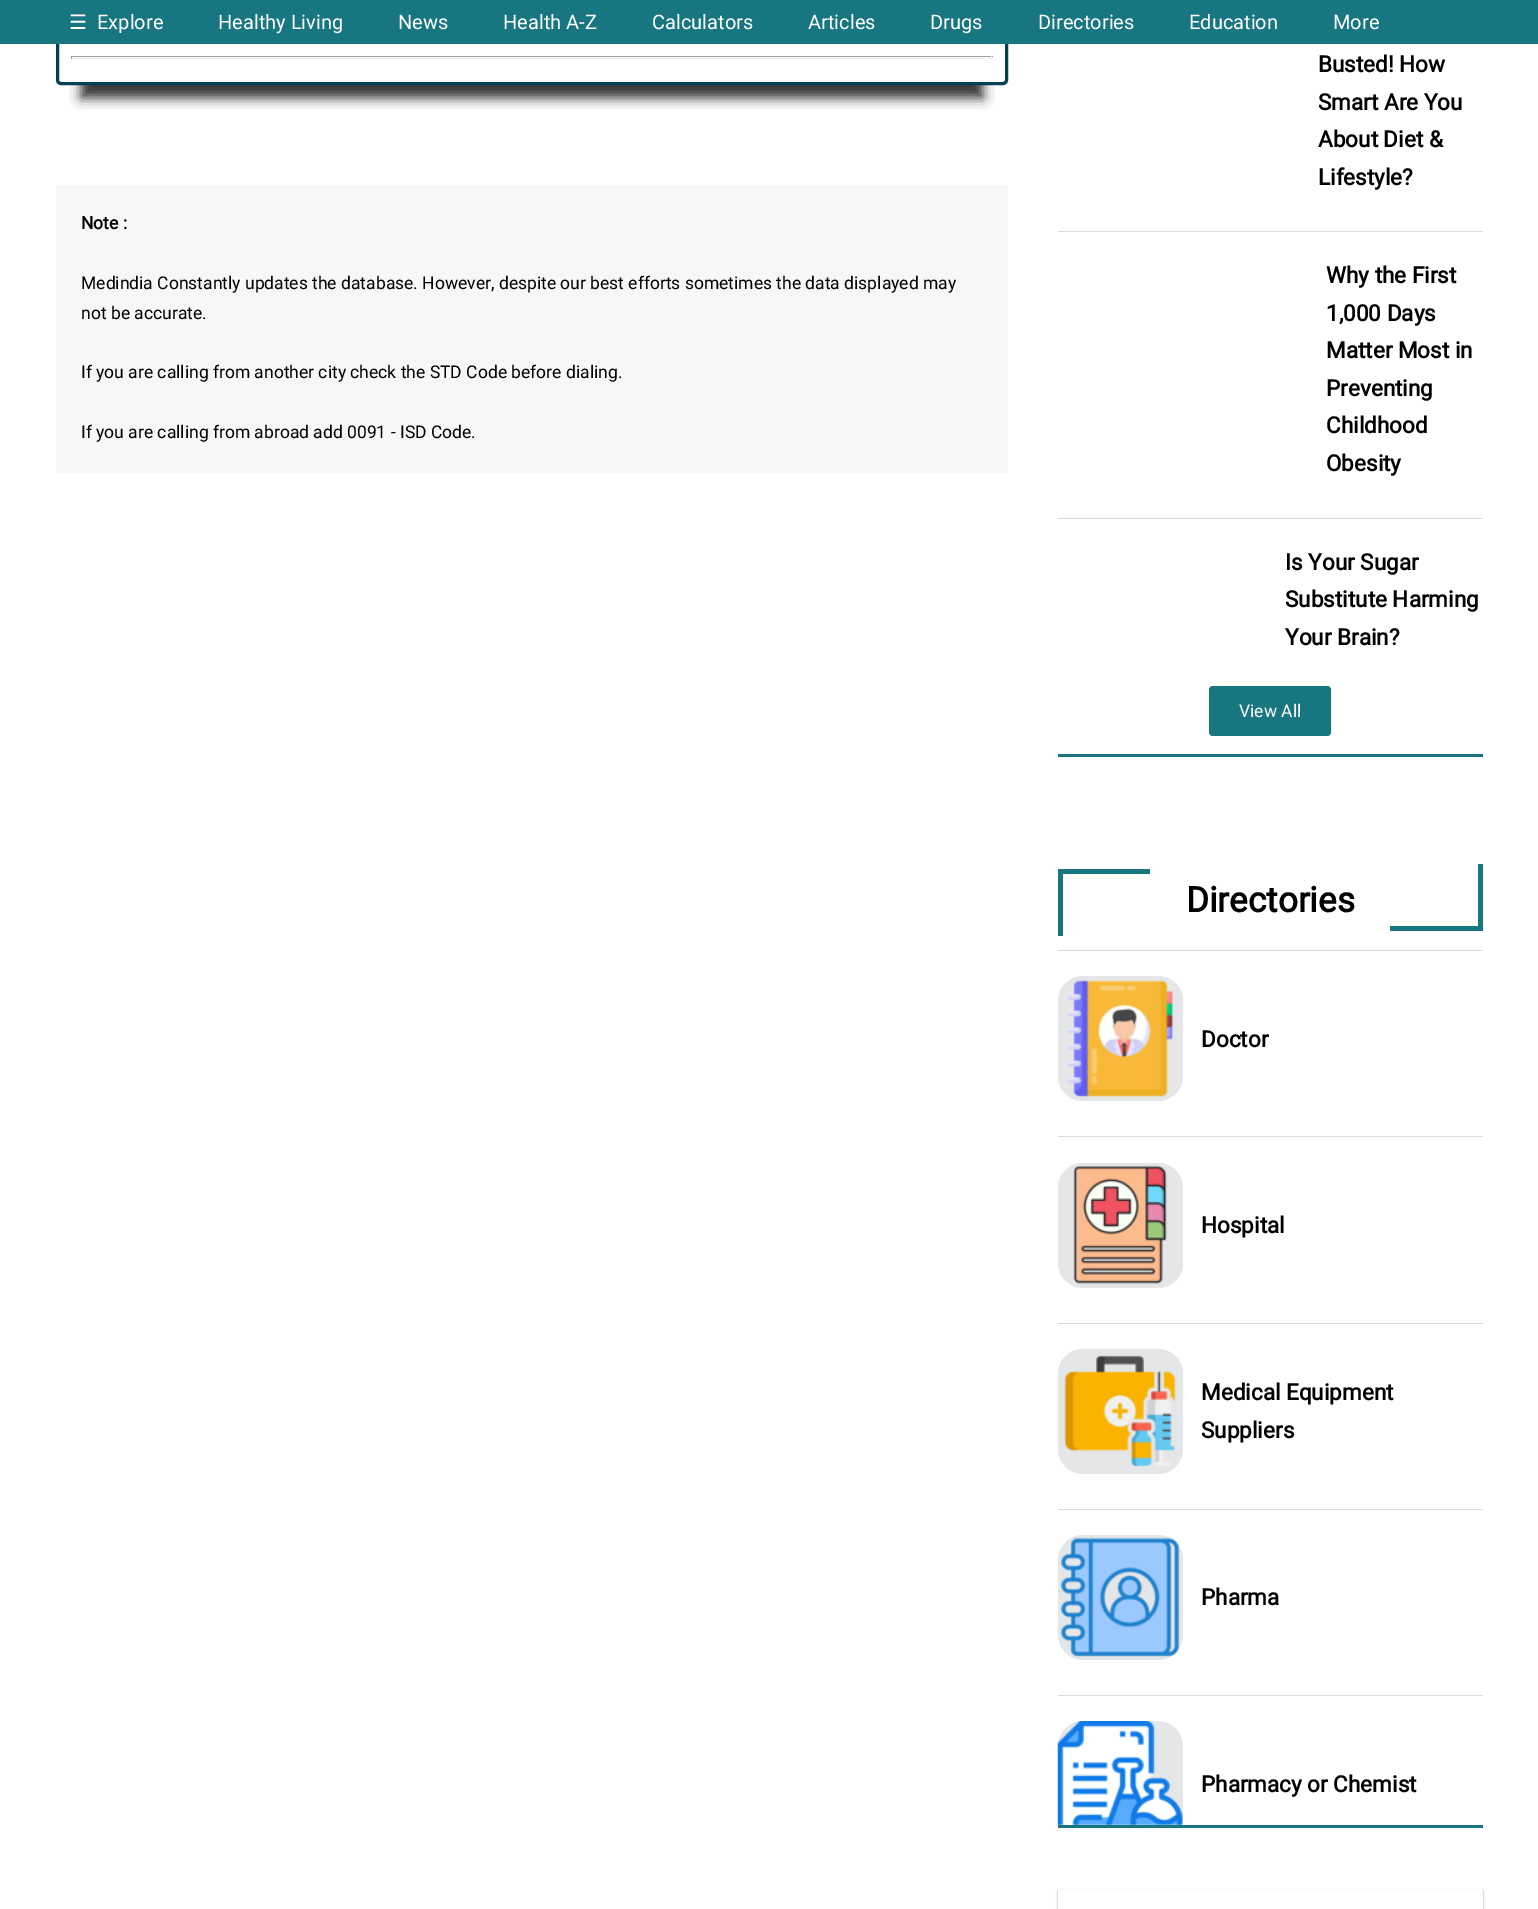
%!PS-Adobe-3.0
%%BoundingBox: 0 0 1538 1909
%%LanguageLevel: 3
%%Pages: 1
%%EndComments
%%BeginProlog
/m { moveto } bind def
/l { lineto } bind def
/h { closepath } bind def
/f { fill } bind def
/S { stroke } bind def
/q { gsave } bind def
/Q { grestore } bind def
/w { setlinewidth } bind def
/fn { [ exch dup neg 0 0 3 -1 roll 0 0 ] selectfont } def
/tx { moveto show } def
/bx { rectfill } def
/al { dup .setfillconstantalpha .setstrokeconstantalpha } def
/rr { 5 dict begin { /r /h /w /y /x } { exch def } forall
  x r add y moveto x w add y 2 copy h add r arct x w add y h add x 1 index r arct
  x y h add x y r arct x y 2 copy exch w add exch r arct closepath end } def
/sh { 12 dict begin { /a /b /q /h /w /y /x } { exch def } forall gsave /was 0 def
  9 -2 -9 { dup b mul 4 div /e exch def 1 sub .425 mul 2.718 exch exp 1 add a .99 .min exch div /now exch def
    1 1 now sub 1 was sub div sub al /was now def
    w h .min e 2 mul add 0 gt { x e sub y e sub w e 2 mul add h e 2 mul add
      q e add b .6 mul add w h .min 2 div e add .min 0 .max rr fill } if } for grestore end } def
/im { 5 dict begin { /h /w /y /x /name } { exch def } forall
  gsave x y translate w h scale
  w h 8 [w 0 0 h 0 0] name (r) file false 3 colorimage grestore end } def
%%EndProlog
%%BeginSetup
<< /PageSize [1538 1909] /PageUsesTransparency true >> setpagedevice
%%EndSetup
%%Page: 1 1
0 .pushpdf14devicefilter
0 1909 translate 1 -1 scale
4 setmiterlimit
1 setgray
0 0 1538 1909 bx
q
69 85 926 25 rectclip
0 setgray
81 -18 902 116 0 6 0.8 sh
Q
0.012 0.255 0.329 setrgbcolor
3 w
57.5 -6.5 949 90 3.5 rr S
0.094 0.463 0.506 setrgbcolor
0 0 1538 44 bx
/DejaVuSans-Regular 20 fn
1 setgray
(☰) 69 29 tx
/Roboto-Regular 20 fn
(Explore) 97 29 tx
(Healthy Living) 218 29 tx
(News) 398 29 tx
(Health A-Z) 503 29 tx
(Calculators) 652 29 tx
(Articles) 808 29 tx
(Drugs) 930 29 tx
(Directories) 1038 29 tx
(Education) 1189 29 tx
(More) 1333 29 tx
0.624 setgray
71 56 922 1 bx
0.933 setgray
991 56 1 3 bx
71 58 922 1 bx
0.624 setgray
71 56 1 3 bx
0.969 setgray
56 185 952 288 bx
/Roboto-Bold 17.5 fn
0 setgray
(Note :) 81 229 tx
/Roboto-Regular 17.5 fn
(Medindia Constantly updates the database. However, despite our best efforts sometimes the data displayed may) 81 289 tx
(not be accurate.) 81 319 tx
(If you are calling from another city check the STD Code before dialing.) 81 378 tx
(If you are calling from abroad add 0091 - ISD Code.) 81 438 tx
0.094 0.463 0.506 setrgbcolor
1058 754 425 3 bx
/Roboto-Bold 22.5 fn
0 setgray
(Busted! How) 1318 72 tx
(Smart Are You) 1318 110 tx
(About Diet &) 1318 147 tx
(Lifestyle?) 1318 185 tx
0.863 0.859 0.859 setrgbcolor
1058 231 425 1 bx
0 setgray
(Why the First) 1326 283 tx
(1,000 Days) 1326 321 tx
(Matter Most in) 1326 358 tx
(Preventing) 1326 396 tx
(Childhood) 1326 433 tx
(Obesity) 1326 471 tx
0.863 0.859 0.859 setrgbcolor
1058 518 425 1 bx
0 setgray
(Is Your Sugar) 1285 570 tx
(Substitute Harming) 1285 607 tx
(Your Brain?) 1285 645 tx
0.094 0.463 0.506 setrgbcolor
1209 686 122 50 4 rr f
/Roboto-Regular 17.5 fn
1 setgray
(View All) 1239 717 tx
0.094 0.463 0.506 setrgbcolor
1058 1825 425 3 bx
1058 869 92 5 bx
1058 869 5 67 bx
/Roboto-Bold 35 fn
0 setgray
(Directories) 1186 912 tx
0.094 0.463 0.506 setrgbcolor
1478 864 5 67 bx
1390 926 93 5 bx
0.863 0.859 0.859 setrgbcolor
1058 950 425 1 bx
0.894 0.902 0.906 setrgbcolor
1058 976 125 125 25 rr f
(image0.raw) 1067 979 106 119 im
/Roboto-Bold 22.5 fn
0 setgray
(Doctor) 1201 1047 tx
0.863 0.859 0.859 setrgbcolor
1058 1136 425 1 bx
0.894 0.902 0.906 setrgbcolor
1058 1163 125 125 25 rr f
(image1.raw) 1073 1165 94 119 im
0 setgray
(Hospital) 1201 1233 tx
0.863 0.859 0.859 setrgbcolor
1058 1323 425 1 bx
0.894 0.902 0.906 setrgbcolor
1058 1349 125 125 25 rr f
(image2.raw) 1064 1355 112 112 im
0 setgray
(Medical Equipment) 1201 1400 tx
(Suppliers) 1201 1438 tx
0.863 0.859 0.859 setrgbcolor
1058 1509 425 1 bx
0.894 0.902 0.906 setrgbcolor
1058 1535 125 125 25 rr f
(image3.raw) 1060 1537 120 120 im
0 setgray
(Pharma) 1201 1605 tx
0.863 0.859 0.859 setrgbcolor
1058 1695 425 1 bx
q
1058 950 425 875 rectclip
0.894 0.902 0.906 setrgbcolor
1058 1721 125 125 25 rr f
Q
(image4.raw) 1057 1721 126 104 im
0 setgray
(Pharmacy or Chemist) 1201 1792 tx
q
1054 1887 m 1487 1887 l 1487 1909 l 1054 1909 l h 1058 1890 m 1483 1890 l 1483 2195 l 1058 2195 l h eoclip newpath
0.235 0.251 0.263 setrgbcolor
1058 1891 425 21 0 1 0.58 sh
Q
.poppdf14devicefilter showpage
%%EOF
